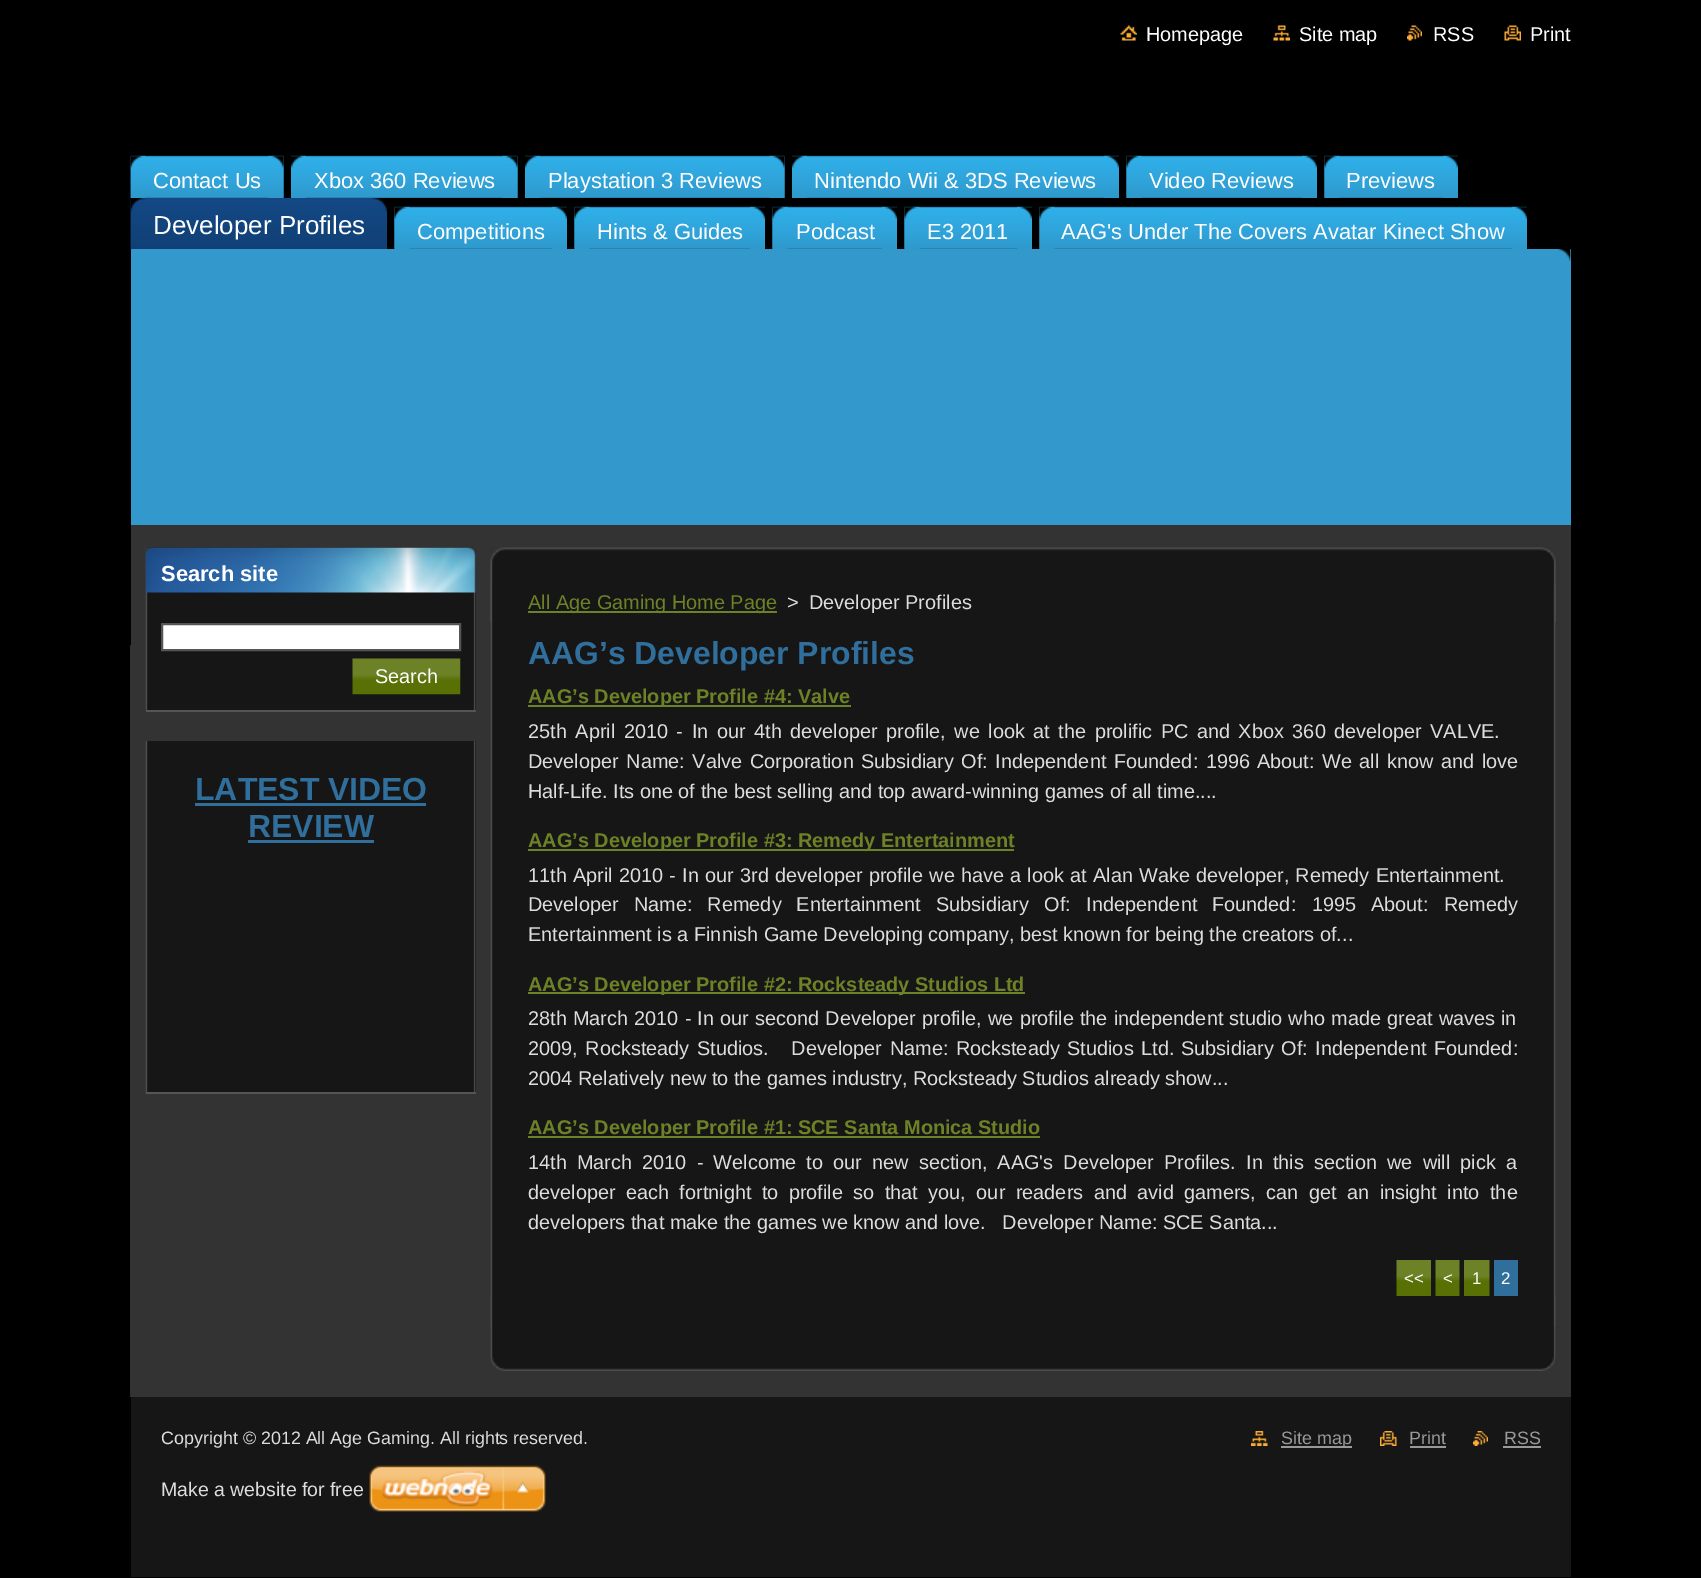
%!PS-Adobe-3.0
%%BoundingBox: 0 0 1701 1578
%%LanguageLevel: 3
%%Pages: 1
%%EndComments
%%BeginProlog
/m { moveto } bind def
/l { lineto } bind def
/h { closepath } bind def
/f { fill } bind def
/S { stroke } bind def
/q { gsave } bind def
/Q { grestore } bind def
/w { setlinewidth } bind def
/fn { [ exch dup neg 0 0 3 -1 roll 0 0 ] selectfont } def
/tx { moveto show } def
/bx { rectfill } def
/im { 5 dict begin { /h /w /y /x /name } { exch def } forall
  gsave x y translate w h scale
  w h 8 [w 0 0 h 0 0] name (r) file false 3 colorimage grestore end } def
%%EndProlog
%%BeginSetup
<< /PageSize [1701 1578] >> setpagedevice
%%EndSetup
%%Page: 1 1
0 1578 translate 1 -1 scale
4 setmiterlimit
0 setgray
0 0 1701 1578 bx
0.2 setgray
130 645 1441 752 bx
(image0.raw) 1120 25 17 16 im
/LiberationSans-Regular 19.9 fn
1 setgray
(Homepage) 1146 41 tx
(image1.raw) 1273 25 17 16 im
(Site map) 1299 41 tx
(image2.raw) 1407 25 15 16 im
(RSS) 1433 41 tx
(image3.raw) 1504 25 17 16 im
(Print) 1530 41 tx
(image4.raw) 130 155 154 43 im
(image5.raw) 130 155 16 43 im
(image6.raw) 268 155 16 43 im
/LiberationSans-Regular 21.9 fn
(Contact Us) 153 188 tx
(image7.raw) 291 155 227 43 im
(image8.raw) 291 155 15 43 im
(image6.raw) 502 155 16 43 im
(Xbox 360 Reviews) 314 188 tx
(image9.raw) 525 155 260 43 im
(image8.raw) 525 155 15 43 im
(image6.raw) 769 155 16 43 im
(Playstation 3 Reviews) 548 188 tx
(image10.raw) 792 155 327 43 im
(image11.raw) 792 155 15 43 im
(image12.raw) 1104 155 15 43 im
(Nintendo Wii & 3DS Reviews) 814 188 tx
(image13.raw) 1126 155 191 43 im
(image14.raw) 1126 155 16 43 im
(image15.raw) 1302 155 15 43 im
(Video Reviews) 1149 188 tx
(image16.raw) 1324 155 134 43 im
(image14.raw) 1324 155 16 43 im
(image15.raw) 1443 155 15 43 im
(Previews) 1346 188 tx
(image17.raw) 130 198 257 51 im
(image18.raw) 130 198 16 51 im
(image19.raw) 372 198 15 15 im
/LiberationSans-Regular 26 fn
(Developer Profiles) 153 234 tx
(image20.raw) 394 206 173 43 im
(image14.raw) 394 206 16 43 im
(image15.raw) 552 206 15 43 im
/LiberationSans-Regular 21.9 fn
(Competitions) 417 239 tx
(image13.raw) 574 206 191 43 im
(image14.raw) 574 206 16 43 im
(image12.raw) 750 206 15 43 im
(Hints & Guides) 597 239 tx
(image21.raw) 772 206 125 43 im
(image22.raw) 772 206 16 43 im
(image15.raw) 882 206 15 43 im
(Podcast) 796 239 tx
(image23.raw) 904 206 128 43 im
(image22.raw) 904 206 16 43 im
(image15.raw) 1017 206 15 43 im
(E3 2011) 927 239 tx
(image24.raw) 1039 206 488 43 im
(image22.raw) 1039 206 16 43 im
(image12.raw) 1512 206 15 43 im
(AAG's Under The Covers Avatar Kinect Show) 1061 239 tx
0.2 0.6 0.8 setrgbcolor
131 249 1440 276 bx
(image25.raw) 1557 249 14 13 im
0.2 setgray
131 525 1440 120 bx
0.086 setgray
475 548 1 162 bx
(image26.raw) 145 547 331 164 im
0.333 setgray
146 710 330 2 bx
(image27.raw) 145 547 331 46 im
/LiberationSans-Bold 21.9 fn
1 setgray
(Search site) 161 581 tx
162 624 m 460 624 l 460 650 l 162 650 l h q f Q
0.333 setgray
2 w
S
(image28.raw) 352 658 109 37 im
/LiberationSans-Regular 19.9 fn
1 setgray
(Search) 375 683 tx
0.086 setgray
475 741 1 351 bx
(image29.raw) 145 741 331 353 im
0.333 setgray
146 1092 330 2 bx
/LiberationSans-Bold 31.9 fn
0.188 0.431 0.612 setrgbcolor
(LATEST VIDEO) 195 800 tx
195 803 231 3 bx
(REVIEW) 248 837 tx
248 840 126 3 bx
(image30.raw) 490 547 1066 76 im
(image31.raw) 490 1296 1066 75 im
(image32.raw) 490 585 1066 741 im
0.427 0.51 0.153 setrgbcolor
528 611 249 2 bx
/LiberationSans-Regular 19.9 fn
(All Age Gaming Home Page) 528 609 tx
0.867 setgray
(>) 787 609 tx
(Developer Profiles) 809 609 tx
/LiberationSans-Bold 31.9 fn
0.188 0.431 0.612 setrgbcolor
(AAG’s Developer Profiles) 528 664 tx
0.427 0.51 0.153 setrgbcolor
528 705 323 2 bx
/LiberationSans-Bold 19.9 fn
(AAG’s Developer Profile #4: Valve) 528 703 tx
/LiberationSans-Regular 19.9 fn
0.867 setgray
528 738 m 3 0 32 (25th April 2010 - In our 4th developer profile, we look at the prolific PC and Xbox 360 developer VALVE.) widthshow
528 768 m 2 0 32 (Developer Name: Valve Corporation) widthshow
861 768 m 2 0 32 (Subsidiary Of: Independent) widthshow
1114 768 m 2 0 32 (Founded: 1996) widthshow
1257 768 m 2 0 32 (About: We all know and love) widthshow
(Half-Life. Its one of the best selling and top award-winning games of all time....) 528 798 tx
0.427 0.51 0.153 setrgbcolor
528 849 486 2 bx
/LiberationSans-Bold 19.9 fn
(AAG’s Developer Profile #3: Remedy Entertainment) 528 847 tx
/LiberationSans-Regular 19.9 fn
0.867 setgray
528 882 m 0.7 0 32 (11th April 2010 - In our 3rd developer profile we have a look at Alan Wake developer, Remedy Entertainment.) widthshow
528 911 m 9.5 0 32 (Developer Name: Remedy Entertainment) widthshow
936 911 m 10 0 32 (Subsidiary Of: Independent) widthshow
1212 911 m 10 0 32 (Founded: 1995) widthshow
1371 911 m 9.5 0 32 (About: Remedy) widthshow
(Entertainment is a Finnish Game Developing company, best known for being the creators of...) 528 941 tx
0.427 0.51 0.153 setrgbcolor
528 992 497 2 bx
/LiberationSans-Bold 19.9 fn
(AAG’s Developer Profile #2: Rocksteady Studios Ltd) 528 991 tx
/LiberationSans-Regular 19.9 fn
0.867 setgray
528 1025 m 0.6 0 32 (28th March 2010 - In our second Developer profile, we profile the independent studio who made great waves in) widthshow
528 1055 m 2 0 32 (2009, Rocksteady Studios.   Developer Name: Rocksteady Studios Ltd.) widthshow
1181 1055 m 2 0 32 (Subsidiary Of: Independent) widthshow
(Founded:) 1434 1055 tx
(2004 Relatively new to the games industry, Rocksteady Studios already show...) 528 1085 tx
0.427 0.51 0.153 setrgbcolor
528 1136 512 2 bx
/LiberationSans-Bold 19.9 fn
(AAG’s Developer Profile #1: SCE Santa Monica Studio) 528 1134 tx
/LiberationSans-Regular 19.9 fn
0.867 setgray
528 1169 m 4.6 0 32 (14th March 2010 - Welcome to our new section, AAG's Developer Profiles. In this section we will pick a) widthshow
528 1199 m 4.9 0 32 (developer each fortnight to profile so that you, our readers and avid gamers, can get an insight into the) widthshow
(developers that make the games we know and love.   Developer Name: SCE Santa...) 528 1229 tx
(image33.raw) 1396 1260 35 36 im
/LiberationSans-Regular 17 fn
1 setgray
(<<) 1404 1284 tx
(image34.raw) 1435 1260 25 36 im
(<) 1443 1284 tx
(image35.raw) 1464 1260 26 36 im
(1) 1472 1284 tx
0.188 0.431 0.612 setrgbcolor
1494 1260 24 36 bx
1 setgray
(2) 1501 1284 tx
0.086 setgray
131 1397 1440 180 bx
/LiberationSans-Regular 17.9 fn
0.867 setgray
(Copyright © 2012 All Age Gaming. All rights reserved.) 161 1444 tx
(image36.raw) 1251 1431 17 15 im
0.6 setgray
1281 1446 71 2 bx
(Site map) 1281 1444 tx
(image37.raw) 1380 1431 17 15 im
(Print) 1409 1444 tx
1410 1446 36 2 bx
(image38.raw) 1473 1431 15 15 im
(RSS) 1504 1444 tx
1503 1446 38 2 bx
/LiberationSans-Regular 19.5 fn
0.867 setgray
(Make a website for free) 161 1496 tx
(image39.raw) 369 1465 177 47 im
showpage
%%EOF
